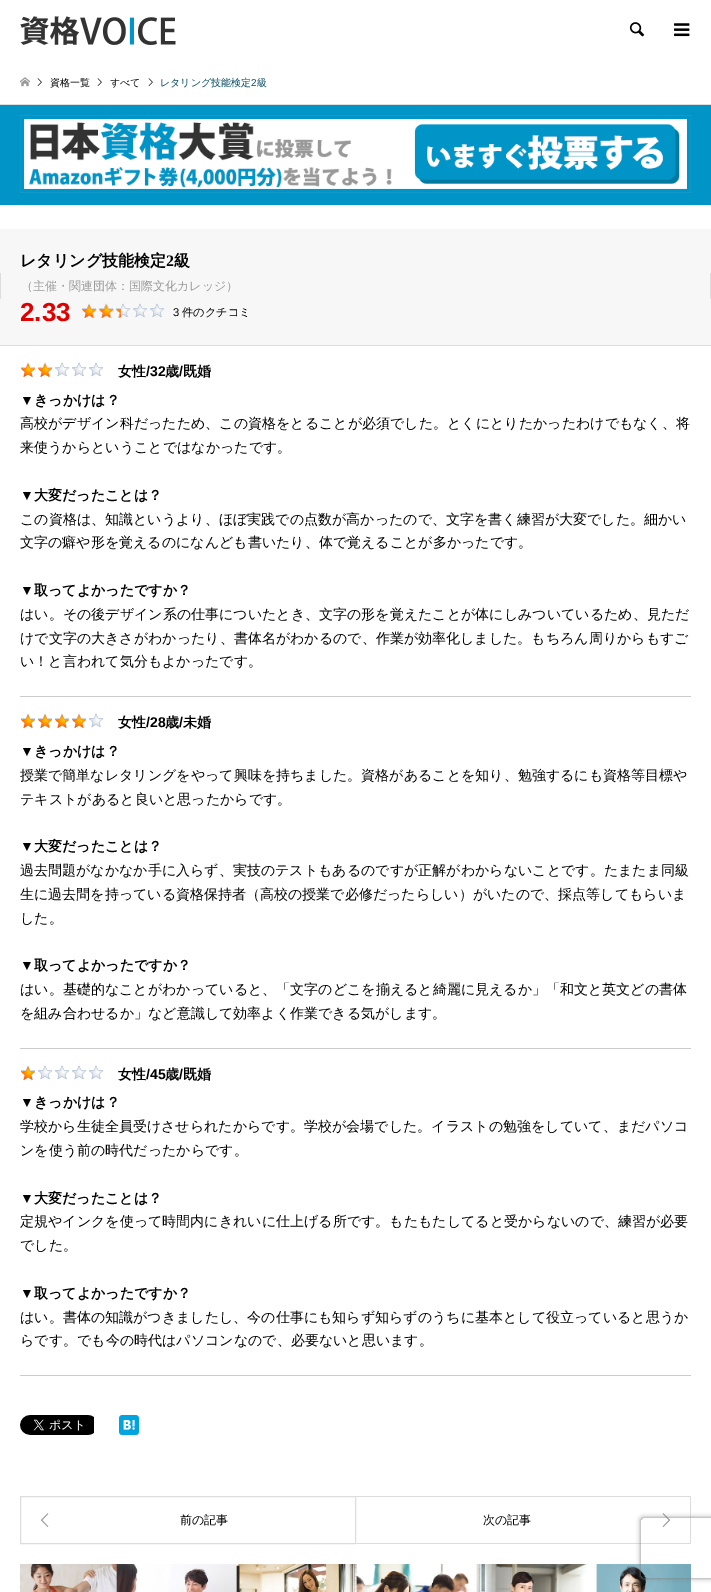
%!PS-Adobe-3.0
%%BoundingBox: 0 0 711 1592
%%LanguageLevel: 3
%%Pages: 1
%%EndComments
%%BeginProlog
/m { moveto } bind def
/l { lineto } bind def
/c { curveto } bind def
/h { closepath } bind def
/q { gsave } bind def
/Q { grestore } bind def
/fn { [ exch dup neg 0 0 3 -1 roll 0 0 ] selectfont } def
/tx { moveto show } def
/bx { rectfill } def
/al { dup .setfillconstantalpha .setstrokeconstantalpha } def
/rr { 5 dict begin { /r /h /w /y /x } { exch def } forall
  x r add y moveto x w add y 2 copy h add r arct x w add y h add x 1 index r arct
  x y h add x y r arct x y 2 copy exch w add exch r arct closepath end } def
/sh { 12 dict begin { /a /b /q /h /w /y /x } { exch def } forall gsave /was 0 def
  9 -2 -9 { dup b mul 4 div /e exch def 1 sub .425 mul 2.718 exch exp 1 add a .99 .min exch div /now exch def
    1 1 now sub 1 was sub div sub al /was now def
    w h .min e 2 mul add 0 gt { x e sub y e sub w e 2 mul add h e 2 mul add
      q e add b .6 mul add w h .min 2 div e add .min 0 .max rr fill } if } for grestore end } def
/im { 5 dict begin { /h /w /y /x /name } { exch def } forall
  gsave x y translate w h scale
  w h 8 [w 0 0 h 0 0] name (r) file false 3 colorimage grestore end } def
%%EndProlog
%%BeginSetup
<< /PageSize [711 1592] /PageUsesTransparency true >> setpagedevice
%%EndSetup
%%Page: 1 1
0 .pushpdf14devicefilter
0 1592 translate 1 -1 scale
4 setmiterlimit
1 setgray
0 0 711 1592 bx
(image0.raw) 20 16 156 29 im
(image1.raw) 629 22 16 15 im
(image2.raw) 674 23 16 14 im
0.867 setgray
0 104 711 1 bx
(image3.raw) 20 77 10 10 im
(image4.raw) 37 78 5 8 im
/WenQuanYiZenHei-Medium 10 fn
0 setgray
(資格一覧) 50 86 tx
(image4.raw) 97 78 5 8 im
(すべて) 110 86 tx
(image4.raw) 148 78 5 8 im
0.004 0.278 0.376 setrgbcolor
(レタリング技能検定) 160 86 tx
/LiberationSans-Regular 10 fn
(2) 251 86 tx
/WenQuanYiZenHei-Medium 10 fn
(級) 257 86 tx
0.004 0.58 0.78 setrgbcolor
0 105 711 100 bx
(image5.raw) 20 115 671 78 im
0.969 setgray
0 229 711 44 bx
/WenQuanYiZenHei-Bold 16 fn
0 setgray
(レタリング技能検定) 20 266 tx
/LiberationSerif-Bold 16 fn
(2) 166 266 tx
/WenQuanYiZenHei-Bold 16 fn
(級) 174 266 tx
0.969 setgray
1 273 709 26 bx
0.867 setgray
710 273 1 26 bx
0 273 1 26 bx
/WenQuanYiZenHei-Medium 12 fn
0.6 setgray
(（主催・関連団体：国際文化カレッジ）) 21 290 tx
0.969 setgray
0 299 711 46 bx
0.867 setgray
0 345 711 1 bx
/LiberationSans-Bold 26 fn
0.882 0 0 setrgbcolor
(2.33) 20 321 tx
(image6.raw) 82 303 83 15 im
(image7.raw) 82 302 39 16 im
/LiberationSans-Regular 11.25 fn
0 setgray
(3) 173 316 tx
/WenQuanYiZenHei-Medium 11.25 fn
(件のクチコミ) 182 316 tx
0.8 setgray
20 696 671 1 bx
(image8.raw) 21 362 83 15 im
(image9.raw) 21 361 32 16 im
/WenQuanYiZenHei-Bold 14 fn
0 setgray
(女性) 118 376 tx
/LiberationSans-Bold 14 fn
(/32) 146 376 tx
/WenQuanYiZenHei-Bold 14 fn
(歳) 165 376 tx
/LiberationSans-Bold 14 fn
(/) 179 376 tx
/WenQuanYiZenHei-Bold 14 fn
(既婚) 183 376 tx
/LiberationSans-Bold 14 fn
(▼) 20 405 tx
/WenQuanYiZenHei-Bold 14 fn
(きっかけは？) 34 405 tx
/WenQuanYiZenHei-Medium 14 fn
(高校がデザイン科だったため、この資格をとることが必須でした。とくにとりたかったわけでもなく、将) 20 428 tx
(来使うからということではなかったです。) 20 452 tx
/LiberationSans-Bold 14 fn
(▼) 20 500 tx
/WenQuanYiZenHei-Bold 14 fn
(大変だったことは？) 34 500 tx
/WenQuanYiZenHei-Medium 14 fn
(この資格は、知識というより、ほぼ実践での点数が高かったので、文字を書く練習が大変でした。細かい) 20 524 tx
(文字の癖や形を覚えるのになんども書いたり、体で覚えることが多かったです。) 20 547 tx
/LiberationSans-Bold 14 fn
(▼) 20 595 tx
/WenQuanYiZenHei-Bold 14 fn
(取ってよかったですか？) 34 595 tx
/WenQuanYiZenHei-Medium 14 fn
(はい。その後デザイン系の仕事についたとき、文字の形を覚えたことが体にしみついているため、見ただ) 20 619 tx
(けで文字の大きさがわかったり、書体名がわかるので、作業が効率化しました。もちろん周りからもすご) 20 643 tx
(い！と言われて気分もよかったです。) 20 666 tx
0.8 setgray
20 1048 671 1 bx
(image8.raw) 21 713 83 15 im
(image10.raw) 21 712 66 16 im
/WenQuanYiZenHei-Bold 14 fn
0 setgray
(女性) 118 727 tx
/LiberationSans-Bold 14 fn
(/28) 146 727 tx
/WenQuanYiZenHei-Bold 14 fn
(歳) 165 727 tx
/LiberationSans-Bold 14 fn
(/) 179 727 tx
/WenQuanYiZenHei-Bold 14 fn
(未婚) 183 727 tx
/LiberationSans-Bold 14 fn
(▼) 20 756 tx
/WenQuanYiZenHei-Bold 14 fn
(きっかけは？) 34 756 tx
/WenQuanYiZenHei-Medium 14 fn
(授業で簡単なレタリングをやって興味を持ちました。資格があることを知り、勉強するにも資格等目標や) 20 780 tx
(テキストがあると良いと思ったからです。) 20 804 tx
/LiberationSans-Bold 14 fn
(▼) 20 851 tx
/WenQuanYiZenHei-Bold 14 fn
(大変だったことは？) 34 851 tx
/WenQuanYiZenHei-Medium 14 fn
(過去問題がなかなか手に入らず、実技のテストもあるのですが正解がわからないことです。たまたま同級) 20 875 tx
(生に過去問を持っている資格保持者（高校の授業で必修だったらしい）がいたので、採点等してもらいま) 20 899 tx
(した。) 20 923 tx
/LiberationSans-Bold 14 fn
(▼) 20 970 tx
/WenQuanYiZenHei-Bold 14 fn
(取ってよかったですか？) 34 970 tx
/WenQuanYiZenHei-Medium 14 fn
(はい。基礎的なことがわかっていると、「文字のどこを揃えると綺麗に見えるか」「和文と英文どの書体) 20 994 tx
(を組み合わせるか」など意識して効率よく作業できる気がします。) 20 1018 tx
0.8 setgray
20 1375 671 1 bx
(image8.raw) 21 1065 83 15 im
(image11.raw) 21 1064 15 16 im
/WenQuanYiZenHei-Bold 14 fn
0 setgray
(女性) 118 1079 tx
/LiberationSans-Bold 14 fn
(/45) 146 1079 tx
/WenQuanYiZenHei-Bold 14 fn
(歳) 165 1079 tx
/LiberationSans-Bold 14 fn
(/) 179 1079 tx
/WenQuanYiZenHei-Bold 14 fn
(既婚) 183 1079 tx
/LiberationSans-Bold 14 fn
(▼) 20 1107 tx
/WenQuanYiZenHei-Bold 14 fn
(きっかけは？) 34 1107 tx
/WenQuanYiZenHei-Medium 14 fn
(学校から生徒全員受けさせられたからです。学校が会場でした。イラストの勉強をしていて、まだパソコ) 20 1131 tx
(ンを使う前の時代だったからです。) 20 1155 tx
/LiberationSans-Bold 14 fn
(▼) 20 1203 tx
/WenQuanYiZenHei-Bold 14 fn
(大変だったことは？) 34 1203 tx
/WenQuanYiZenHei-Medium 14 fn
(定規やインクを使って時間内にきれいに仕上げる所です。もたもたしてると受からないので、練習が必要) 20 1226 tx
(でした。) 20 1250 tx
/LiberationSans-Bold 14 fn
(▼) 20 1298 tx
/WenQuanYiZenHei-Bold 14 fn
(取ってよかったですか？) 34 1298 tx
/WenQuanYiZenHei-Medium 14 fn
(はい。書体の知識がつきましたし、今の仕事にも知らず知らずのうちに基本として役立っていると思うか) 20 1322 tx
(らです。でも今の時代はパソコンなので、必要ないと思います。) 20 1345 tx
(image12.raw) 20 1415 74 20 im
(image13.raw) 119 1415 20 20 im
0.867 setgray
20.5 1496.5 335 47 rectstroke
(image14.raw) 41 1513 8 14 im
/WenQuanYiZenHei-Medium 12 fn
0 setgray
(前の記事) 180 1524 tx
0.867 setgray
356 1496 335 1 bx
690 1496 1 48 bx
356 1543 335 1 bx
0 setgray
(次の記事) 483 1524 tx
(image15.raw) 662 1513 8 14 im
(image16.raw) 20 1564 671 28 im
q
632 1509 m 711 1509 l 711 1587 l 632 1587 l h 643 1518 m 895 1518 l 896 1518 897 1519 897 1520 c 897 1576 l 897 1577 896 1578 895 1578 c 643 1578 l 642 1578 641 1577 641 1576 c 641 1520 l 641 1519 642 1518 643 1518 c h eoclip newpath
0.502 setgray
641 1518 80 60 2 2.5 1 sh
Q
.poppdf14devicefilter showpage
%%EOF
